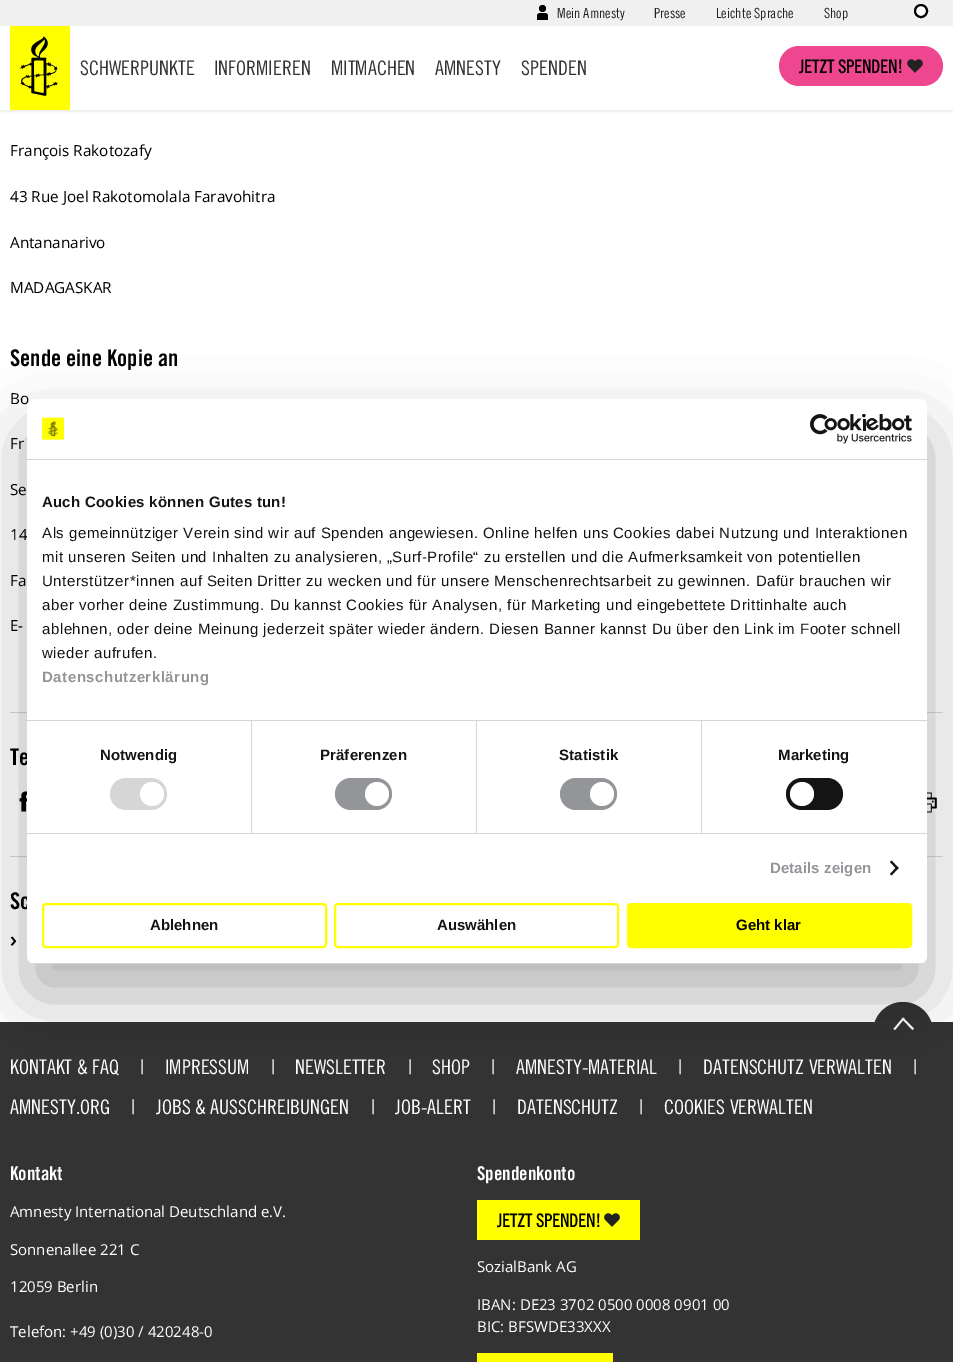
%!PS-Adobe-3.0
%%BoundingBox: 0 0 953 1362
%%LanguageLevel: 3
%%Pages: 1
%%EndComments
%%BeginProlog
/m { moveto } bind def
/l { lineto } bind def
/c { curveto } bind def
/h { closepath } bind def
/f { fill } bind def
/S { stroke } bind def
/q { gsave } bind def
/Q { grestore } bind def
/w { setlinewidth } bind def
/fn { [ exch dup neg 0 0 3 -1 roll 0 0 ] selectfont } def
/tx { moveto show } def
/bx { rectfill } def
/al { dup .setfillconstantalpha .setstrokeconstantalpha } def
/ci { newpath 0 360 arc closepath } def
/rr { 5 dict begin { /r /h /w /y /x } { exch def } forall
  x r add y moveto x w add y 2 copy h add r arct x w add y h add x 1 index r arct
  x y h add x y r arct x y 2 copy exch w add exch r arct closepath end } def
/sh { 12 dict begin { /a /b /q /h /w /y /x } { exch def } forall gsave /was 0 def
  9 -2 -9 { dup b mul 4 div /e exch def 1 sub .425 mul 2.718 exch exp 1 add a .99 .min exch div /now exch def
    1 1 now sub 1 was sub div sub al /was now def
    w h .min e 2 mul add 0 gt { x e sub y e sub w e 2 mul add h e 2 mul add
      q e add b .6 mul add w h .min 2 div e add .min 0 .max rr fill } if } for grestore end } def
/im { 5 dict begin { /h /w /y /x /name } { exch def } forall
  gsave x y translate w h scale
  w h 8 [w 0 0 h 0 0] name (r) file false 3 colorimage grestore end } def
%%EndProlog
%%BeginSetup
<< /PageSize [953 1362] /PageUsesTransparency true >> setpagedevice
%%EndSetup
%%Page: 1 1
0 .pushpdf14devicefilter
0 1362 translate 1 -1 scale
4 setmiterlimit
1 setgray
0 0 953 1362 bx
0 setgray
1 1 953 110 0 1.5 0.1 sh
1 setgray
0 26 953 84 bx
0.941 setgray
0 0 953 26 bx
0 setgray
542.5 8.5 3.5 ci f
/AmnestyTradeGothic-Regular 14 fn
0.133 setgray
(Mein Amnesty) 557 18 tx
0 setgray
540 13 m 545 13 l 546.5 13 548 14.5 548 16 c 548 20 l 537 20 l 537 16 l 537 14.5 538.5 13 540 13 c h f
0.133 setgray
(Presse) 654 18 tx
(Leichte Sprache) 716 18 tx
(Shop) 824 18 tx
1 setgray
921 11 6 ci q f Q
0 setgray
2 w
S
1 1 0 setrgbcolor
10 26 60 84 bx
(image0.raw) 20 36 38 60 im
/AmnestyTradeGothic-Regular 20 fn
0.2 setgray
(SCHWERPUNKTE) 80 75 tx
(INFORMIEREN) 214 75 tx
(MITMACHEN) 331 75 tx
(AMNESTY) 435 75 tx
(SPENDEN) 521 75 tx
0.933 0.278 0.565 setrgbcolor
779 46 164 40 20 rr f
(image1.raw) 907 59 16 14 im
/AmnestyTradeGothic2-Bold 18 fn
0 setgray
(JETZT SPENDEN!) 799 73 tx
/OpenSans-Regular 15.25 fn
(François Rakotozafy) 10 156 tx
(43 Rue Joel Rakotomolala Faravohitra) 10 202 tx
(Antananarivo) 10 248 tx
(MADAGASKAR) 10 293 tx
/AmnestyTradeGothic-Bold 23 fn
(Sende eine Kopie an) 10 366 tx
/OpenSans-Regular 15.25 fn
(Bo) 10 404 tx
(Fr) 10 449 tx
(Se) 10 495 tx
(14) 10 540 tx
(Fa) 10 586 tx
(E-) 10 631 tx
0.855 setgray
10 712 933 1 bx
/AmnestyTradeGothic-Bold 23 fn
0 setgray
(Te) 10 765 tx
(image2.raw) 19 791 8 21 im
(image3.raw) 927 792 10 21 im
0.855 setgray
10 856 933 1 bx
0 setgray
(Sc) 10 909 tx
/OpenSans-Bold 21 fn
(›) 10 947 tx
0.2 setgray
0 1022 953 340 bx
903 1002 m 919.5 1002 933 1015.5 933 1032 c 933 1042 l 873 1042 l 873 1032 l 873 1015.5 886.5 1002 903 1002 c h f
1 setgray
903 1017.5 m 904.5 1018.5 l 895 1030 l 893.5 1029 l h f
902 1019 m 903.5 1018 l 914 1028.5 l 912.5 1030 l h f
/AmnestyTradeGothic-Regular 20 fn
(KONTAKT & FAQ) 10 1074 tx
(|) 140 1074 tx
(IMPRESSUM) 165 1074 tx
(|) 271 1074 tx
(NEWSLETTER) 295 1074 tx
(|) 408 1074 tx
(SHOP) 432 1074 tx
(|) 491 1074 tx
(AMNESTY-MATERIAL) 516 1074 tx
(|) 678 1074 tx
(DATENSCHUTZ VERWALTEN) 703 1074 tx
(|) 913 1074 tx
(AMNESTY.ORG) 10 1114 tx
(|) 131 1114 tx
(JOBS & AUSSCHREIBUNGEN) 156 1114 tx
(|) 371 1114 tx
(JOB-ALERT) 395 1114 tx
(|) 492 1114 tx
(DATENSCHUTZ) 517 1114 tx
(|) 639 1114 tx
(COOKIES VERWALTEN) 664 1114 tx
/AmnestyTradeGothic-Bold 19 fn
(Kontakt) 10 1180 tx
/OpenSans-Regular 15 fn
(Amnesty International Deutschland e.V.) 10 1217 tx
(Sonnenallee 221 C) 10 1255 tx
(12059 Berlin) 10 1292 tx
(Telefon: +49 \(0\)30 / 420248-0) 10 1337 tx
/AmnestyTradeGothic-Bold 19 fn
(Spendenkonto) 477 1180 tx
1 1 0 setrgbcolor
477 1200 163 40 bx
(image4.raw) 604 1213 16 14 im
/AmnestyTradeGothic2-Bold 18 fn
0 setgray
(JETZT SPENDEN!) 497 1227 tx
/OpenSans-Regular 15 fn
1 setgray
(SozialBank AG) 477 1272 tx
(IBAN: DE23 3702 0500 0008 0901 00) 477 1310 tx
(BIC: BFSWDE33XXX) 477 1332 tx
1 1 0 setrgbcolor
477 1353 136 9 bx
0 setgray
27 431 900 565 8 34 0.3 sh
1 setgray
27 399 900 565 8 rr f
0.839 setgray
27 459 900 1 bx
(image5.raw) 42 417 22 24 im
(image6.raw) 810 414 102 30 im
27 720 900 1 bx
/LiberationSans-Bold 15 fn
0.078 setgray
42 507 m 0.25 0 (Auch Cookies können Gutes tun!) ashow
/LiberationSans-Regular 15 fn
42 538 m 0.5 0 (Als gemeinnütziger Verein sind wir auf Spenden angewiesen. Online helfen uns Cookies dabei Nutzung und Interaktionen) ashow
42 562 m 0.5 0 (mit unseren Seiten und Inhalten zu analysieren, „Surf-Profile“ zu erstellen und die Aufmerksamkeit von potentiellen) ashow
42 586 m 0.5 0 (Unterstützer*innen auf Seiten Dritter zu wecken und für unsere Menschenrechtsarbeit zu gewinnen. Dafür brauchen wir) ashow
42 610 m 0.5 0 (aber vorher deine Zustimmung. Du kannst Cookies für Analysen, für Marketing und eingebettete Drittinhalte auch) ashow
42 634 m 0.5 0 (ablehnen, oder deine Meinung jederzeit später wieder ändern. Diesen Banner kannst Du über den Link im Footer schnell) ashow
42 658 m 0.5 0 (wieder aufrufen.) ashow
/LiberationSans-Bold 15 fn
0.576 0.584 0.596 setrgbcolor
42 682 m 0.5 0 (Datenschutzerklärung) ashow
0.839 setgray
27 833 900 1 bx
251 721 1 112 bx
0.078 setgray
100 760 m 0.1 0 (Notwendig) ashow
0.839 setgray
110 778 57 32 16 rr f
1 setgray
152 794 12 ci f
0.839 setgray
476 721 1 112 bx
0.078 setgray
320 760 m 0.1 0 (Präferenzen) ashow
0.576 0.584 0.596 setrgbcolor
335 778 57 32 16 rr f
1 setgray
377 794 12 ci f
0.839 setgray
701 721 1 112 bx
0.078 setgray
559 760 m 0.1 0 (Statistik) ashow
0.576 0.584 0.596 setrgbcolor
560 778 57 32 16 rr f
1 setgray
602 794 12 ci f
0.078 setgray
778 760 m 0.1 0 (Marketing) ashow
786 778 57 32 16 rr f
1 setgray
802 794 12 ci f
0.576 0.584 0.596 setrgbcolor
770 873 m 0.1 0 (Details zeigen) ashow
0.078 setgray
891.5 860.5 m 898.5 868 l 897 869.5 l 890 862 l h f
897 866.5 m 898.5 868 l 891.5 875.5 l 890 874 l h f
q
27 399 900 565 8 rr clip newpath
0.839 setgray
27 963 900 1 bx
Q
1 1 0 setrgbcolor
43 904 283 43 3 rr S
0.078 setgray
(Ablehnen) 150 930 tx
1 1 0 setrgbcolor
335 904 283 43 3 rr S
0.078 setgray
(Auswählen) 437 930 tx
1 1 0 setrgbcolor
628 904 283 43 3 rr q f Q
S
0 setgray
(Geht klar) 736 930 tx
.poppdf14devicefilter showpage
%%EOF
